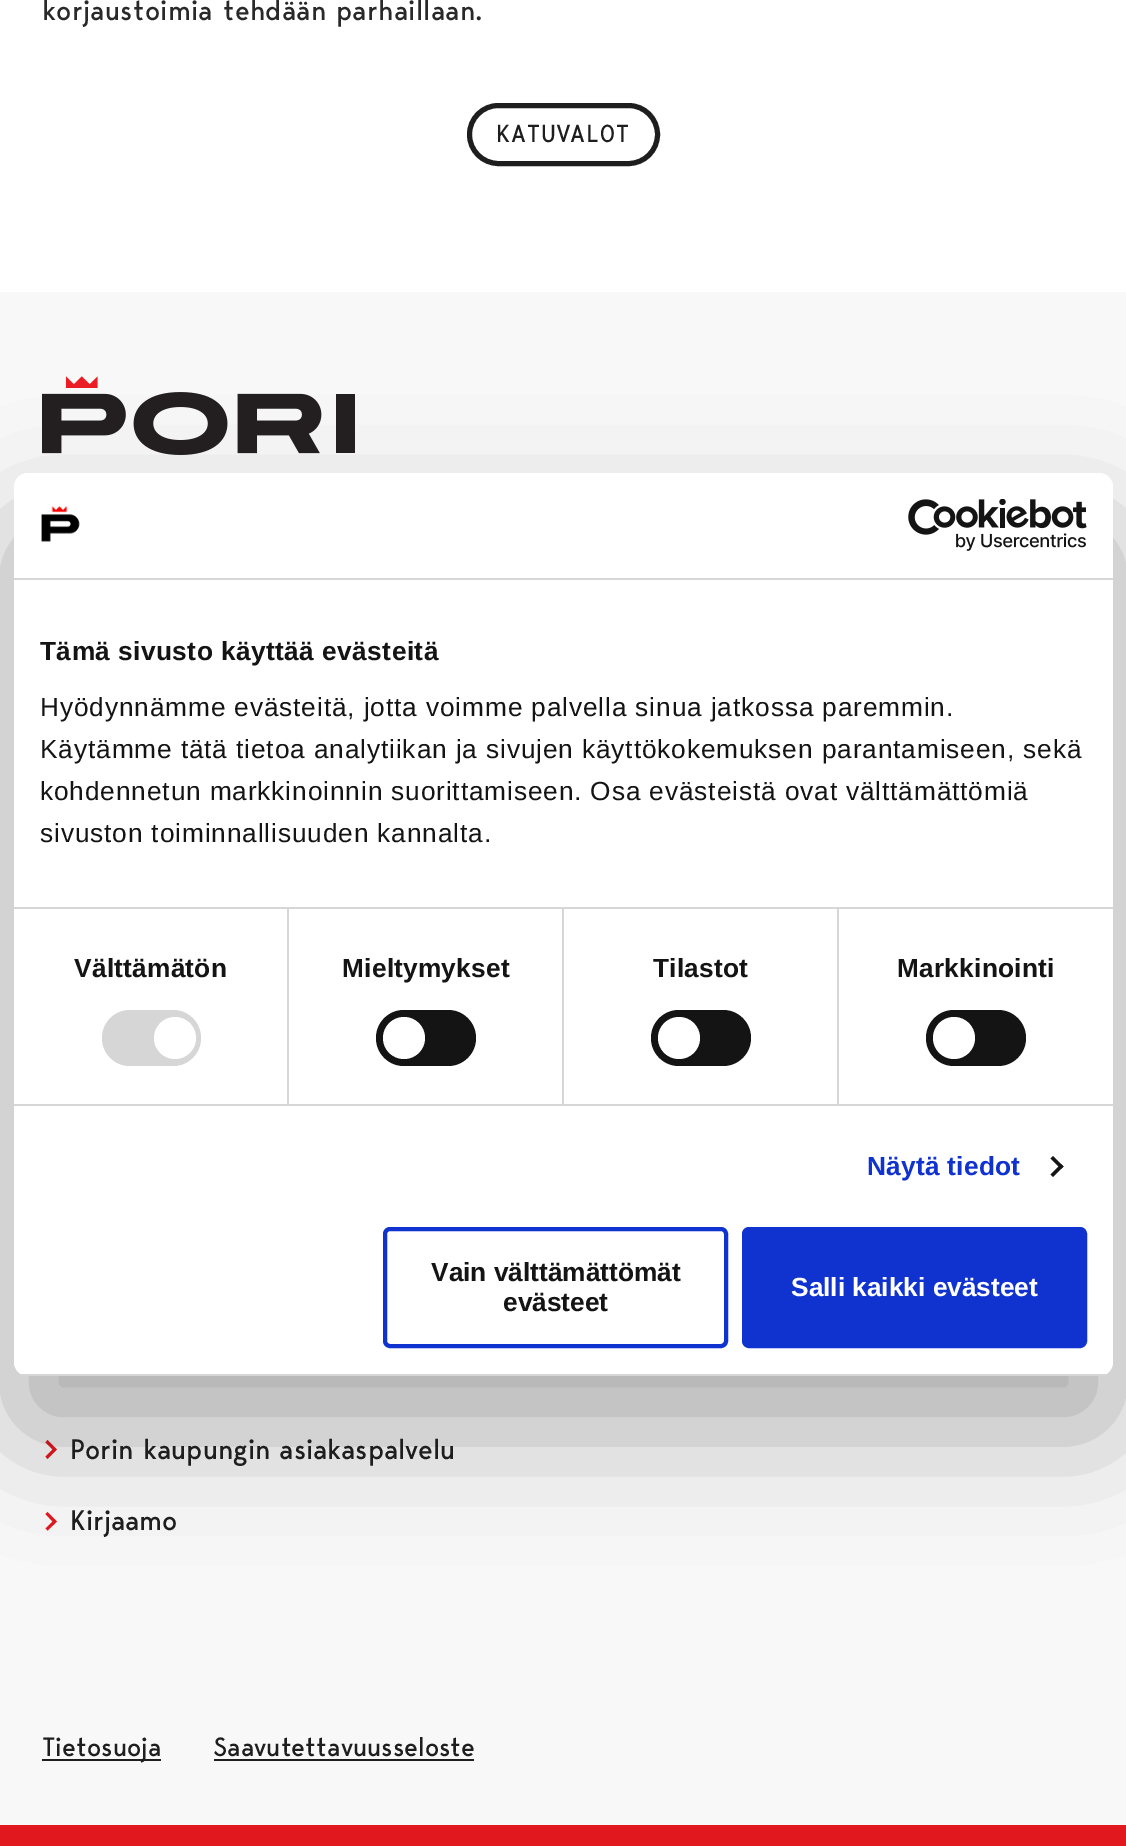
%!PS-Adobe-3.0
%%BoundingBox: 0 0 1126 1846
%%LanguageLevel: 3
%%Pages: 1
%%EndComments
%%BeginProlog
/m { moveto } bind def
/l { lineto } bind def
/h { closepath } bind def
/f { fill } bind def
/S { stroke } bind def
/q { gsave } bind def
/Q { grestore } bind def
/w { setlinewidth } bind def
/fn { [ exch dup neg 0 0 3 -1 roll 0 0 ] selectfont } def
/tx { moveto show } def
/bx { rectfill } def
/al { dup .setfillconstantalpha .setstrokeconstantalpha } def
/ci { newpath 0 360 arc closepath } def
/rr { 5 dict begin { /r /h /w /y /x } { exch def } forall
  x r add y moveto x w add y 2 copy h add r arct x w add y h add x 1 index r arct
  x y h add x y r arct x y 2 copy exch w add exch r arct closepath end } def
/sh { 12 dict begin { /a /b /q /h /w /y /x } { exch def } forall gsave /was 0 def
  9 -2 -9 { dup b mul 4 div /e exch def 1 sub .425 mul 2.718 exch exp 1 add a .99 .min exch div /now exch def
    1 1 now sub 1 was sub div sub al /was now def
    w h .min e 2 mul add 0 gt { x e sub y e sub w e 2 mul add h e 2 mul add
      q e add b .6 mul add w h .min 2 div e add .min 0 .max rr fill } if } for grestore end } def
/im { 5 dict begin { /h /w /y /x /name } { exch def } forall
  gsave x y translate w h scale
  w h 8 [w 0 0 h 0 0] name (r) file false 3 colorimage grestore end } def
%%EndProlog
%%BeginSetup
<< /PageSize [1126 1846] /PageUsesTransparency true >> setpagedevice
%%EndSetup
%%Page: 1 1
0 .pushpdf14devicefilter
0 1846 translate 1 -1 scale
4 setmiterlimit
1 setgray
0 0 1126 1846 bx
/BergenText-Regular 28 fn
0.161 setgray
42 20 m 0.3 0 (korjaustoimia tehdään parhaillaan.) ashow
0.118 setgray
5 w
469.5 105.5 188 58 29 rr S
/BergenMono-Regular 24.5 fn
(KATUVALOT) 496 142 tx
0.973 setgray
0 292 1126 1533 bx
(image2.raw) 42 376 313 79 im
0.886 0.094 0.122 setrgbcolor
45.5 1456.5 m 52.5 1449.5 l 45.5 1442.5 l 47.5 1440 l 57 1449.5 l 47.5 1459 l h f
45.5 1528.5 m 52.5 1521.5 l 45.5 1514 l 47.5 1512 l 57 1521.5 l 47.5 1530.5 l h f
0 setgray
14 529 1099 903 14 59.5 0.3 sh
1 setgray
14 473 1099 903 14 rr f
0.839 setgray
14 578 1099 2 bx
(image0.raw) 41 506 39 36 im
(image1.raw) 908 499 179 52 im
287 908 2 196 bx
562 908 2 196 bx
837 908 2 196 bx
14 907 1099 2 bx
/LiberationSans-Bold 26.25 fn
0.078 setgray
40 660 m 0.45 0 (Tämä sivusto käyttää evästeitä) ashow
/LiberationSans-Regular 26.25 fn
40 716 m 0.88 0 (Hyödynnämme evästeitä, jotta voimme palvella sinua jatkossa paremmin.) ashow
40 758 m 0.88 0 (Käytämme tätä tietoa analytiikan ja sivujen käyttökokemuksen parantamiseen, sekä) ashow
40 800 m 0.88 0 (kohdennetun markkinoinnin suorittamiseen. Osa evästeistä ovat välttämättömiä) ashow
40 842 m 0.88 0 (sivuston toiminnallisuuden kannalta.) ashow
0.839 setgray
14 1104 1099 2 bx
/LiberationSans-Bold 26.25 fn
0.078 setgray
74 977 m 0.25 0 (Välttämätön) ashow
0.839 setgray
102 1010 99 56 28 rr f
1 setgray
175 1038 21 ci f
0.078 setgray
342 977 m 0.25 0 (Mieltymykset) ashow
376 1010 100 56 28 rr f
1 setgray
404 1038 21 ci f
0.078 setgray
653 977 m 0.25 0 (Tilastot) ashow
651 1010 100 56 28 rr f
1 setgray
679 1038 21 ci f
0.078 setgray
897 977 m 0.25 0 (Markkinointi) ashow
926 1010 100 56 28 rr f
1 setgray
954 1038 21 ci f
0.063 0.196 0.812 setrgbcolor
867 1175 m 0.25 0 (Näytä tiedot) ashow
0.078 setgray
1053 1156 m 1063.5 1166.5 l 1061 1169 l 1050.5 1158.5 l h f
1061 1164 m 1063.5 1166.5 l 1053 1177 l 1050.5 1174.5 l h f
q
14 473 1099 903 14 rr clip newpath
0.839 setgray
14 1374 1099 2 bx
Q
0.063 0.196 0.812 setrgbcolor
4 w
385 1229 341 117 5 rr S
0.078 setgray
(Vain välttämättömät) 431 1281 tx
(evästeet) 503 1311 tx
0.063 0.196 0.812 setrgbcolor
744 1229 341 117 5 rr q f Q
S
1 setgray
(Salli kaikki evästeet) 791 1296 tx
0.886 0.094 0.122 setrgbcolor
0 1825 1126 21 bx
/BergenText-Regular 28 fn
0.118 setgray
(Porin kaupungin asiakaspalvelu) 70 1459 tx
(Kirjaamo) 70 1530 tx
42 1759 119 2 bx
/BergenText-Regular 26.25 fn
(Tietosuoja) 42 1756 tx
(Saavutettavuusseloste) 213 1756 tx
214 1759 260 2 bx
.poppdf14devicefilter showpage
%%EOF
